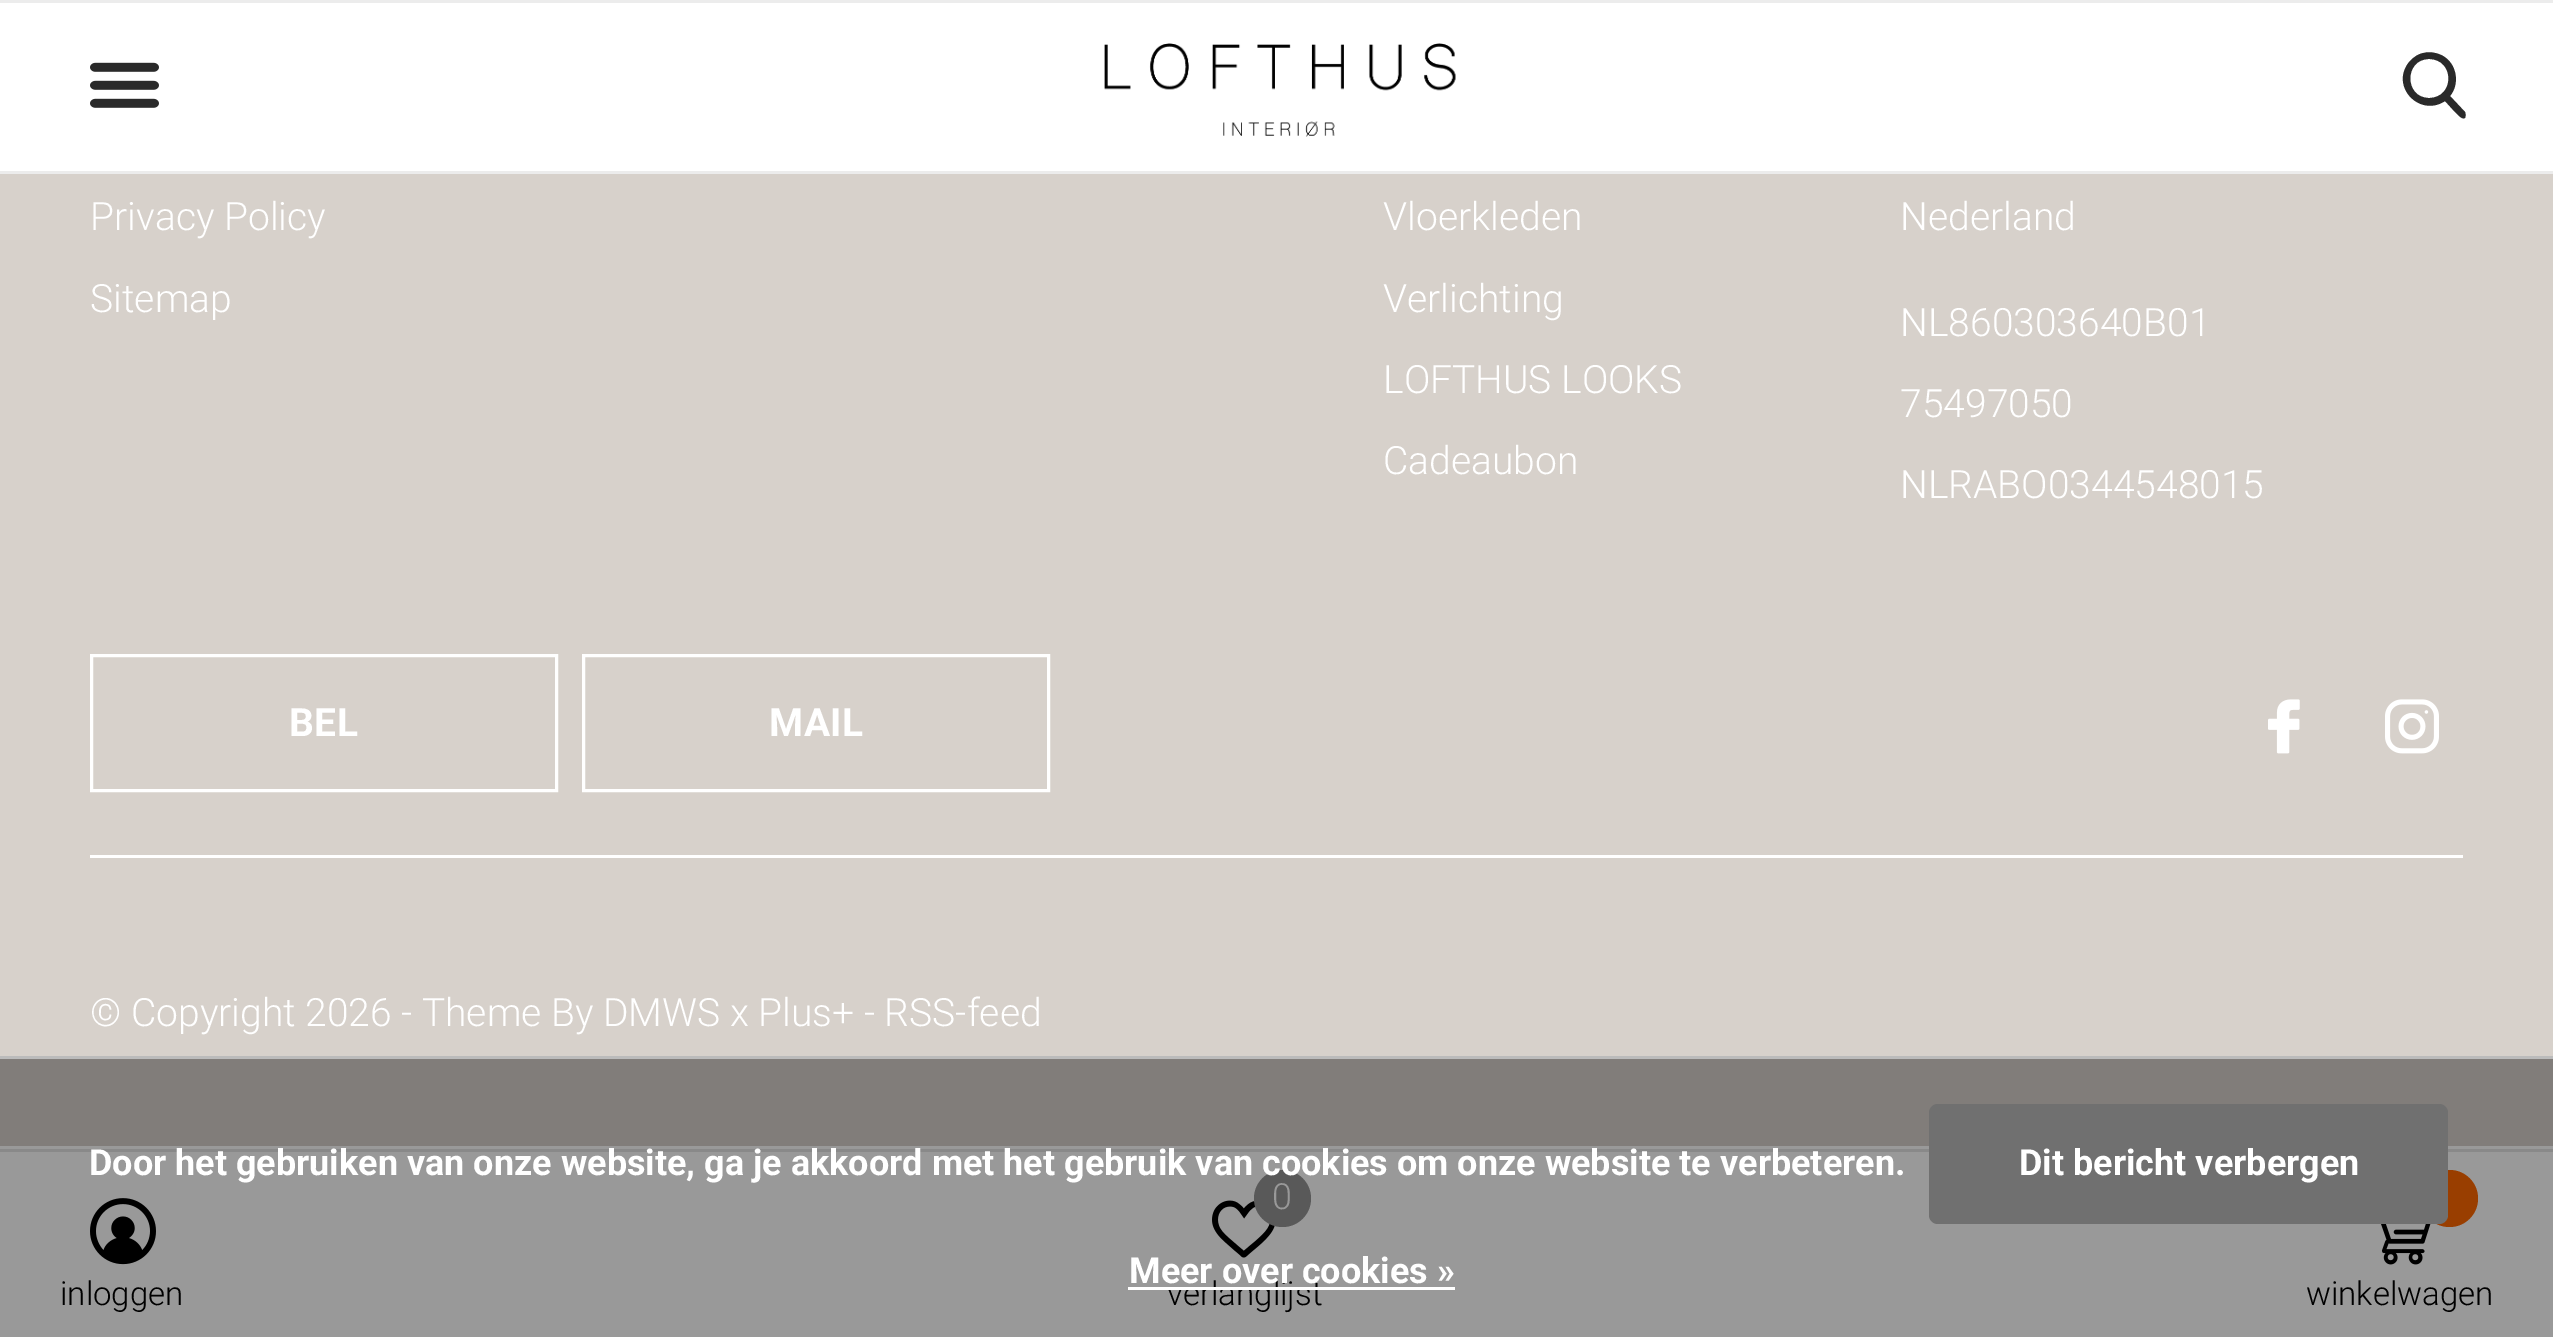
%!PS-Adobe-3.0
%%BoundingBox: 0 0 2553 1337
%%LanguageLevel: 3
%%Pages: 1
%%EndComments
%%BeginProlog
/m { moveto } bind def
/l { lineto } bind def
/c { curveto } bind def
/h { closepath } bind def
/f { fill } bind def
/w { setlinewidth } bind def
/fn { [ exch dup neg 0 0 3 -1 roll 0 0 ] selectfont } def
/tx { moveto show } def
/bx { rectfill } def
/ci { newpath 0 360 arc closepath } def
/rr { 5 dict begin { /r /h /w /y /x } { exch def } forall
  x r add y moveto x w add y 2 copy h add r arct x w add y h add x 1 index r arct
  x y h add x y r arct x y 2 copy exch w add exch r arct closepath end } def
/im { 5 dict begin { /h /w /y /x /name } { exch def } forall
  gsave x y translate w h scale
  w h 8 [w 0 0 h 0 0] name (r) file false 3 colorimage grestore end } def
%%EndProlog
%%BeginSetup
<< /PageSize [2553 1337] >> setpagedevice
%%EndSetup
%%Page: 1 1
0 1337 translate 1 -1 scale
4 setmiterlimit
0.6 setgray
0 0 2553 1337 bx
0.925 setgray
0 0 2553 3 bx
1 setgray
0 3 2553 168 bx
0.925 setgray
0 171 2553 3 bx
(image0.raw) 90 62 69 46 im
(image1.raw) 1104 43 352 94 im
0.165 setgray
2465 112 m 2450 96 l 2460 84 2457 64 2443 56 c 2436 52 2428 51 2420 54 c 2415 56 2410 60 2407 65 c 2392 89 2421 117 2445 101 c 2455 112 l 2457 113 2461 120 2465 118 c 2466 116 2466 114 2465 112 c h 2429 98 m 2404 98 2404 59 2429 59 c 2455 59 2455 98 2429 98 c h f
0.843 0.82 0.796 setrgbcolor
0 174 2553 882 bx
0.506 0.49 0.478 setrgbcolor
0 1059 2553 87 bx
/Roboto-Light 39 fn
1 setgray
(Privacy Policy) 90 230 tx
(Sitemap) 90 312 tx
(Vloerkleden) 1383 230 tx
(Verlichting) 1383 312 tx
(LOFTHUS LOOKS) 1383 393 tx
(Cadeaubon) 1383 474 tx
(Nederland) 1900 230 tx
(NL860303640B01) 1900 336 tx
(75497050) 1900 417 tx
(NLRABO0344548015) 1900 498 tx
3 w
91.5 655.5 465 135 rectstroke
/Roboto-Bold 39 fn
289 736 m 0.5 0 (BEL) ashow
583.5 655.5 465 135 rectstroke
769 736 m 0.5 0 (MAIL) ashow
(image2.raw) 2268 699 32 55 im
(image3.raw) 2385 699 54 55 im
90 855 2373 3 bx
/Roboto-Light 39 fn
(© Copyright 2026 - Theme By DMWS x Plus+ - RSS-feed) 90 1026 tx
0.537 setgray
0 1149 2553 3 bx
(image4.raw) 90 1198 66 67 im
/Roboto-Light 33 fn
0 setgray
(inloggen) 60 1305 tx
(image5.raw) 1212 1200 63 58 im
0.349 setgray
1282.5 1198.5 28.5 ci f
/Roboto-Light 36 fn
0.6 setgray
(0) 1272 1209 tx
/Roboto-Light 33 fn
0 setgray
(verlanglijst) 1167 1305 tx
(image6.raw) 2381 1224 50 41 im
0.6 0.243 0 setrgbcolor
2449.5 1198.5 28.5 ci f
0 setgray
(winkelwagen) 2306 1305 tx
0.733 setgray
0 1056 2553 3 bx
/Roboto-Bold 36 fn
1 setgray
(Door het gebruiken van onze website, ga je akkoord met het gebruik van cookies om onze website te verbeteren.) 89 1175 tx
0.439 setgray
1929 1104 519 120 9 rr f
1 setgray
(Dit bericht verbergen) 2019 1175 tx
(Meer over cookies ») 1129 1283 tx
1128 1287 327 3 bx
showpage
%%EOF
